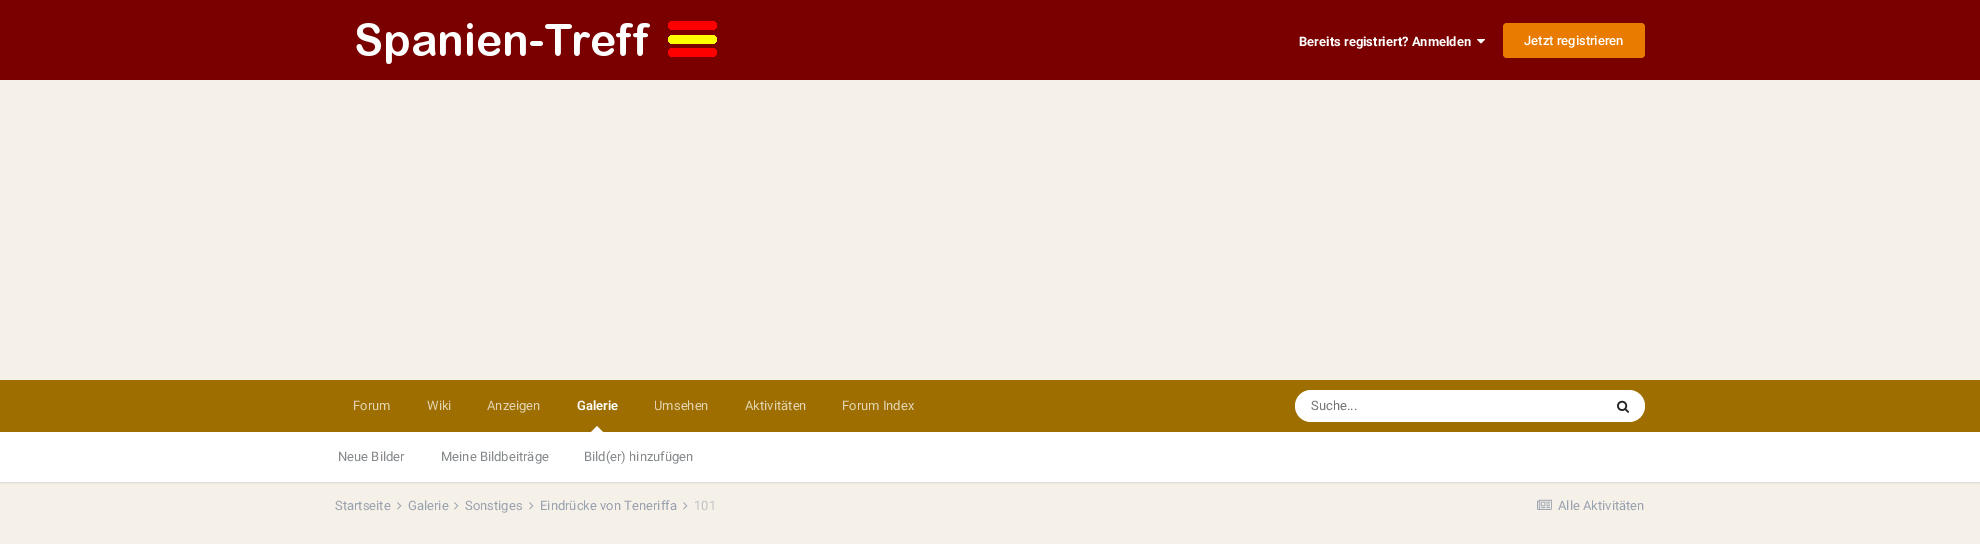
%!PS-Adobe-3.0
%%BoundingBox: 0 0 1980 544
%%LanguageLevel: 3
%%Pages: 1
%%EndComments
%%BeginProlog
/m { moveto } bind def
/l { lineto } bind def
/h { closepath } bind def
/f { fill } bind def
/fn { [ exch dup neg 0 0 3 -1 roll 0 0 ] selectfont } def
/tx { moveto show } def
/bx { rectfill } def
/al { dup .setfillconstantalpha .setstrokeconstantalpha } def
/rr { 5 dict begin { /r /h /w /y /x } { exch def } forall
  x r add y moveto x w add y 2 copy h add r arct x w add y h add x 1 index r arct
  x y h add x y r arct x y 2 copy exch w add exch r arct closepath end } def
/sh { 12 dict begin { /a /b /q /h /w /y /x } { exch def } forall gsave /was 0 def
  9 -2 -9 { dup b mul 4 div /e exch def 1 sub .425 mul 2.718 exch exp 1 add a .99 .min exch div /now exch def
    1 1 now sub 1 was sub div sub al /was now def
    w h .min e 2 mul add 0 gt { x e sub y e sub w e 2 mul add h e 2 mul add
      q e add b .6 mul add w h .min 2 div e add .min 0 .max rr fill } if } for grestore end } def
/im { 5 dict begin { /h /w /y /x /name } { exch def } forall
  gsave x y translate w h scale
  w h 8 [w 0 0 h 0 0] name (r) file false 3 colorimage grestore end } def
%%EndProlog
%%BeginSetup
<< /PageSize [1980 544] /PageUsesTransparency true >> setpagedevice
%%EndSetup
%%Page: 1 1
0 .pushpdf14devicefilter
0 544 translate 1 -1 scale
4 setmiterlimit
0.961 0.941 0.91 setrgbcolor
0 0 1980 544 bx
0.478 0 0 setrgbcolor
0 0 1980 80 bx
(image0.raw) 356 21 361 43 im
/Roboto-Bold 13 fn
1 setgray
(Bereits registriert? Anmelden) 1299 46 tx
(image1.raw) 1477 39 8 5 im
0.91 0.482 0 setrgbcolor
1503 23 142 35 4 rr f
/Roboto-Medium 13 fn
1 setgray
(Jetzt registrieren) 1524 45 tx
0.62 0.435 0 setrgbcolor
0 380 1980 52 bx
/Roboto-SemiBold 13 fn
1 setgray
(Galerie) 577 410 tx
0 setgray
0 433 1980 50 0 1 0.1 sh
1 setgray
603 432 m 591 432 l 597 426 l h f
0 432 1980 50 bx
/Roboto-Regular 13 fn
0.525 0.541 0.553 setrgbcolor
(Neue Bilder) 338 461 tx
(Meine Bildbeiträge) 441 461 tx
(Bild\(er\) hinzufügen) 584 461 tx
0.886 0.831 0.702 setrgbcolor
(Forum) 353 410 tx
(Wiki) 427 410 tx
(Anzeigen) 487 410 tx
(Umsehen) 654 410 tx
(Aktivitäten) 745 410 tx
(Forum Index) 842 410 tx
1 setgray
1295 390 350 32 16 rr f
0.459 setgray
(Suche...) 1311 410 tx
(image2.raw) 1617 400 12 13 im
0.6 0.635 0.686 setrgbcolor
(Startseite) 335 510 tx
(image3.raw) 397 502 5 8 im
(Galerie) 408 510 tx
(image3.raw) 454 502 5 8 im
(Sonstiges) 465 510 tx
(image3.raw) 529 502 5 8 im
(Eindrücke von Teneriffa) 540 510 tx
(image3.raw) 683 502 5 8 im
0.745 0.757 0.776 setrgbcolor
(101) 694 510 tx
(image4.raw) 1537 499 15 11 im
0.6 0.635 0.686 setrgbcolor
(Alle Aktivitäten) 1558 510 tx
.poppdf14devicefilter showpage
%%EOF
